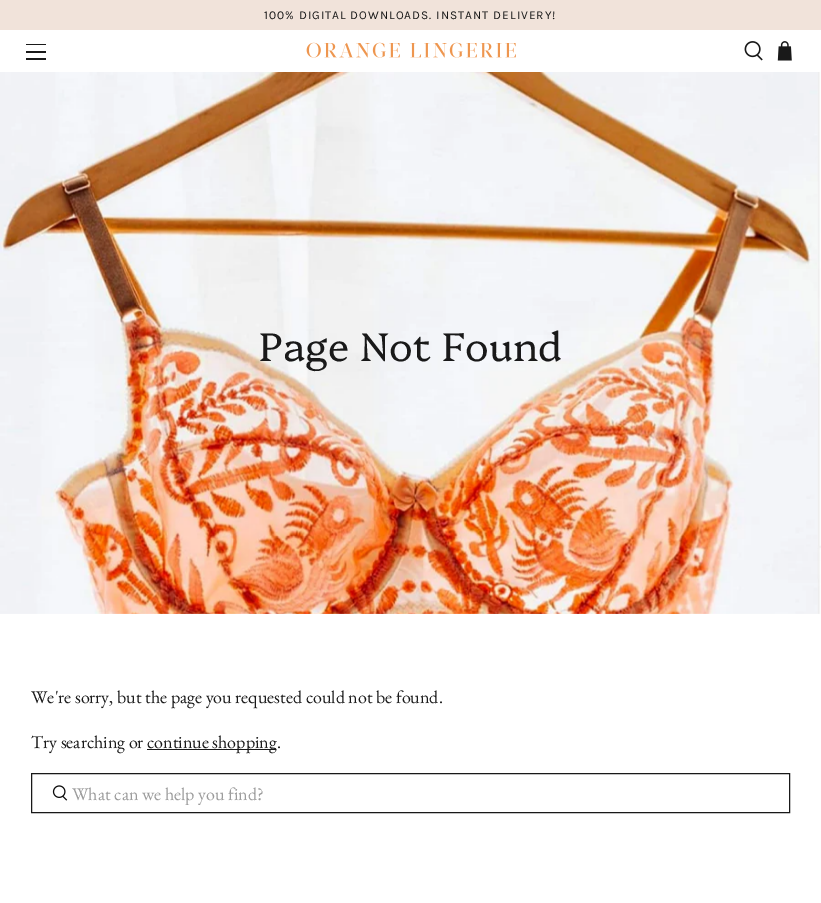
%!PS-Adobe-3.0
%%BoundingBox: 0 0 821 903
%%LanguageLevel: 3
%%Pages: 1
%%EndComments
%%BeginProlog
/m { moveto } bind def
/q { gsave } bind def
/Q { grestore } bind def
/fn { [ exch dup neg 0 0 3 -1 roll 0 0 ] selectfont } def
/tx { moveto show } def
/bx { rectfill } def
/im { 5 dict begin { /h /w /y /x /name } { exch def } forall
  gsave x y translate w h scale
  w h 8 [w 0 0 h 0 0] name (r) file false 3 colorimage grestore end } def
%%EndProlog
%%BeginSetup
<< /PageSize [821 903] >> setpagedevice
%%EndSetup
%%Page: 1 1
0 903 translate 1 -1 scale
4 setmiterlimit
1 setgray
0 0 821 903 bx
0.945 0.89 0.855 setrgbcolor
0 0 821 30 bx
/Karla-Regular 12 fn
0.098 setgray
264 19 m 1 0 (100% DIGITAL DOWNLOADS. INSTANT DELIVERY!) ashow
26 44 20 1 bx
26 51 20 2 bx
26 58 20 2 bx
(image0.raw) 306 42 210 16 im
(image1.raw) 744 41 19 20 im
(image2.raw) 777 41 15 20 im
(image3.raw) 0 72 821 542 im
/Platypi-Light 40 fn
(Page Not Found) 259 361 tx
/EBGaramond-Regular 18 fn
(We're sorry, but the page you requested could not be found.) 31 703 tx
(Try searching or) 31 748 tx
147 749 129 1 bx
(continue shopping.) 147 748 tx
31.5 773.5 758 39 rectstroke
(image4.raw) 52 785 16 16 im
q
72 782 707 23 rectclip
0.608 setgray
(What can we help you find?) 72 800 tx
Q
showpage
%%EOF
